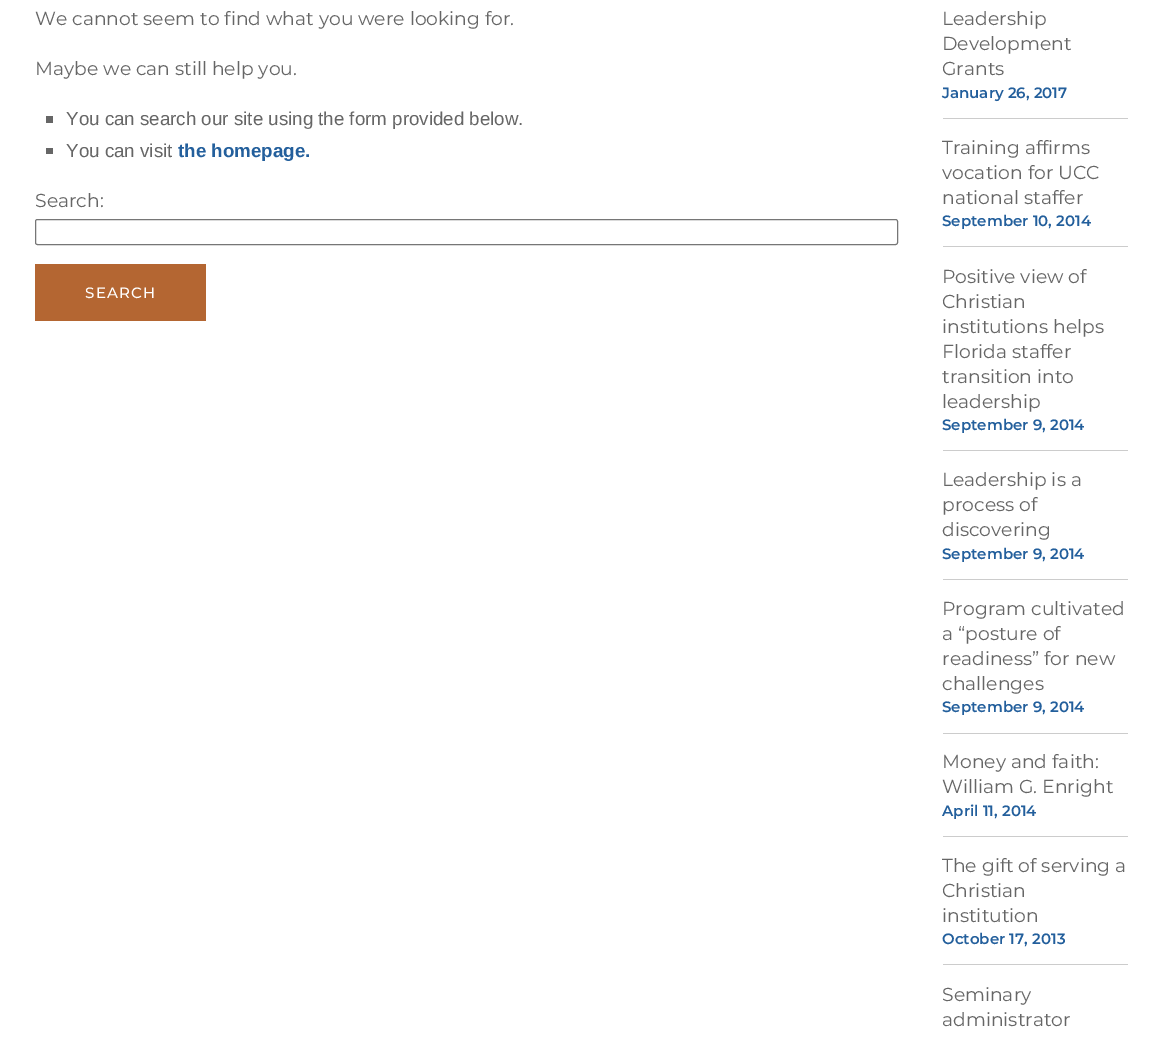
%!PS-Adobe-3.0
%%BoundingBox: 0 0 1162 1041
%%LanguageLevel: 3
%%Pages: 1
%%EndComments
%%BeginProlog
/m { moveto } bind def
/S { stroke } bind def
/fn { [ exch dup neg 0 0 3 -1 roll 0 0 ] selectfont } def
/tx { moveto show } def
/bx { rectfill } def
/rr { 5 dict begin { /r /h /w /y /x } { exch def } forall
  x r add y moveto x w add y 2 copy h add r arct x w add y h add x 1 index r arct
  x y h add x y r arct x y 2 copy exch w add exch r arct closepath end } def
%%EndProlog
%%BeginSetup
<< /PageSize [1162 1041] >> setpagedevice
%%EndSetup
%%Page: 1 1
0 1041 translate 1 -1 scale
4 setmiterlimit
1 setgray
0 0 1162 1041 bx
/Montserrat-Regular 18.75 fn
0.4 setgray
(We cannot seem to find what you were looking for.) 35 25 tx
(Maybe we can still help you.) 35 75 tx
46 116 7 7 bx
/LiberationSans-Regular 18.75 fn
(You can search our site using the form provided below.) 66 125 tx
46 148 7 6 bx
(You can visit) 66 157 tx
/LiberationSans-Bold 18.75 fn
0.137 0.373 0.612 setrgbcolor
(the homepage.) 178 157 tx
/Montserrat-Regular 18.75 fn
0.4 setgray
(Search:) 35 207 tx
0.463 setgray
35.5 219.5 862 25 2 rr S
0.706 0.4 0.196 setrgbcolor
35 264 171 57 bx
/Montserrat-Medium 15 fn
1 setgray
85 298 m 1.25 0 (SEARCH) ashow
0.8 setgray
943 118 185 1 bx
/Montserrat-Regular 18.75 fn
0.4 setgray
(Leadership) 942 25 tx
(Development) 942 50 tx
(Grants) 942 75 tx
/Montserrat-SemiBold 15 fn
0.137 0.373 0.612 setrgbcolor
(January 26, 2017) 942 98 tx
0.8 setgray
943 246 185 1 bx
/Montserrat-Regular 18.75 fn
0.4 setgray
(Training affirms) 942 154 tx
(vocation for UCC) 942 179 tx
(national staffer) 942 204 tx
/Montserrat-SemiBold 15 fn
0.137 0.373 0.612 setrgbcolor
(September 10, 2014) 942 226 tx
0.8 setgray
943 450 185 1 bx
/Montserrat-Regular 18.75 fn
0.4 setgray
(Positive view of) 942 283 tx
(Christian) 942 308 tx
(institutions helps) 942 333 tx
(Florida staffer) 942 358 tx
(transition into) 942 383 tx
(leadership) 942 408 tx
/Montserrat-SemiBold 15 fn
0.137 0.373 0.612 setrgbcolor
(September 9, 2014) 942 430 tx
0.8 setgray
943 579 185 1 bx
/Montserrat-Regular 18.75 fn
0.4 setgray
(Leadership is a) 942 486 tx
(process of) 942 511 tx
(discovering) 942 536 tx
/Montserrat-SemiBold 15 fn
0.137 0.373 0.612 setrgbcolor
(September 9, 2014) 942 559 tx
0.8 setgray
943 733 185 1 bx
/Montserrat-Regular 18.75 fn
0.4 setgray
(Program cultivated) 942 615 tx
(a “posture of) 942 640 tx
(readiness” for new) 942 665 tx
(challenges) 942 690 tx
/Montserrat-SemiBold 15 fn
0.137 0.373 0.612 setrgbcolor
(September 9, 2014) 942 712 tx
0.8 setgray
943 836 185 1 bx
/Montserrat-Regular 18.75 fn
0.4 setgray
(Money and faith:) 942 768 tx
(William G. Enright) 942 793 tx
/Montserrat-SemiBold 15 fn
0.137 0.373 0.612 setrgbcolor
(April 11, 2014) 942 816 tx
0.8 setgray
943 964 185 1 bx
/Montserrat-Regular 18.75 fn
0.4 setgray
(The gift of serving a) 942 872 tx
(Christian) 942 897 tx
(institution) 942 922 tx
/Montserrat-SemiBold 15 fn
0.137 0.373 0.612 setrgbcolor
(October 17, 2013) 942 944 tx
/Montserrat-Regular 18.75 fn
0.4 setgray
(Seminary) 942 1001 tx
(administrator) 942 1026 tx
showpage
%%EOF
